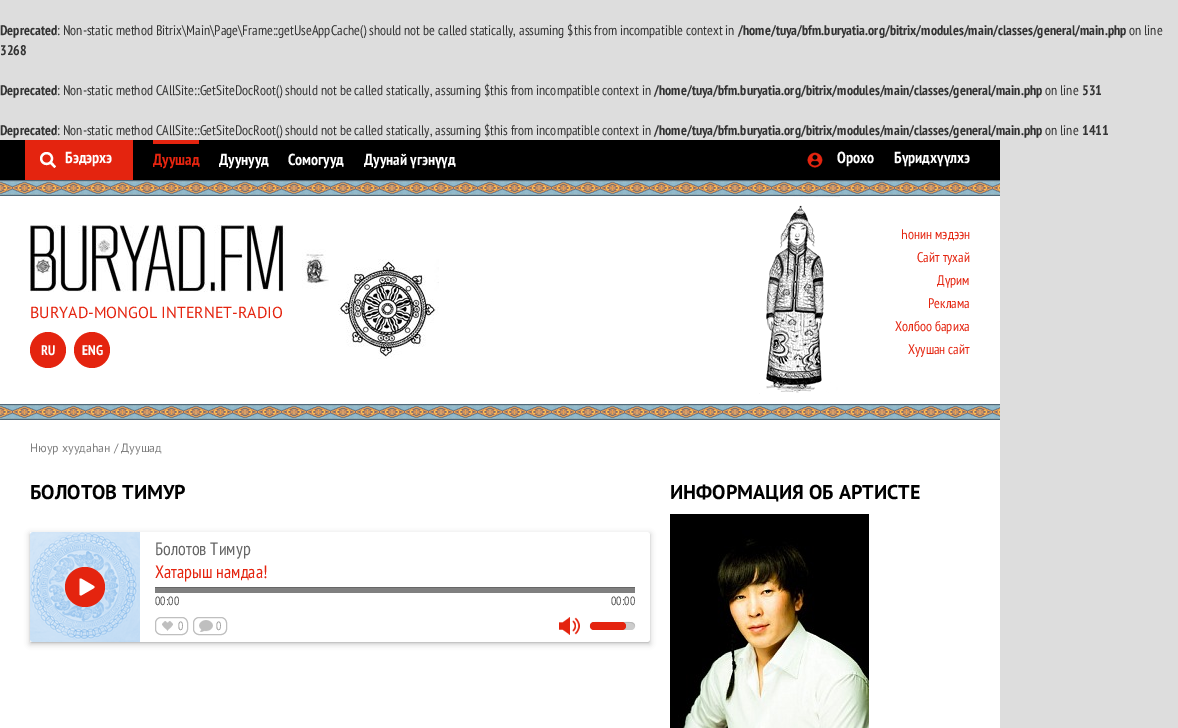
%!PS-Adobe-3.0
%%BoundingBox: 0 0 1178 728
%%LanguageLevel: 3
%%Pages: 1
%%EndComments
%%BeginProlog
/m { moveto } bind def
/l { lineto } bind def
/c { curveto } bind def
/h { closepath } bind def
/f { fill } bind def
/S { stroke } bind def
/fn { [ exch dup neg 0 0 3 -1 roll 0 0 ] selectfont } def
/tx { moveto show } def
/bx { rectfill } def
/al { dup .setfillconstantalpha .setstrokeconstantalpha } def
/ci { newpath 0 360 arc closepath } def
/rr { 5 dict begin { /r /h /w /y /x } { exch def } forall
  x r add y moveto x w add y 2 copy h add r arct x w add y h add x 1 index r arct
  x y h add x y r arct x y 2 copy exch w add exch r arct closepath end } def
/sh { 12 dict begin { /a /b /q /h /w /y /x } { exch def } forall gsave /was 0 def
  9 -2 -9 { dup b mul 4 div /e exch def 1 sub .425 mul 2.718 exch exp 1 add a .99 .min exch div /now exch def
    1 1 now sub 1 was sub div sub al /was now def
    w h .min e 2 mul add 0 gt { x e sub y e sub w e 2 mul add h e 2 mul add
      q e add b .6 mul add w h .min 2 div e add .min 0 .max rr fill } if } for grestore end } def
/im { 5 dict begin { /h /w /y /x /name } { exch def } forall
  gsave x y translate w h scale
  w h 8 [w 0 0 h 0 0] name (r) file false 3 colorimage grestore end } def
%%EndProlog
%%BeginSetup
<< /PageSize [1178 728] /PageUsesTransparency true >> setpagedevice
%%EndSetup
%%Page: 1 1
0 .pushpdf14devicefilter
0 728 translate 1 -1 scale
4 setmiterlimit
0.867 setgray
0 0 1178 728 bx
/PTSansNarrow-Bold 14 fn
0.2 setgray
(Deprecated) 0 35 tx
/PTSansNarrow-Regular 14 fn
(: Non-static method Bitrix\\Main\\Page\\Frame::getUseAppCache\(\) should not be called statically, assuming $this from incompatible context in) 57 35 tx
/PTSansNarrow-Bold 14 fn
(/home/tuya/bfm.buryatia.org/bitrix/modules/main/classes/general/main.php) 738 35 tx
/PTSansNarrow-Regular 14 fn
(on line) 1129 35 tx
/PTSansNarrow-Bold 14 fn
(3268) 0 55 tx
(Deprecated) 0 95 tx
/PTSansNarrow-Regular 14 fn
(: Non-static method CAllSite::GetSiteDocRoot\(\) should not be called statically, assuming $this from incompatible context in) 57 95 tx
/PTSansNarrow-Bold 14 fn
(/home/tuya/bfm.buryatia.org/bitrix/modules/main/classes/general/main.php) 654 95 tx
/PTSansNarrow-Regular 14 fn
(on line) 1045 95 tx
/PTSansNarrow-Bold 14 fn
(531) 1082 95 tx
(Deprecated) 0 135 tx
/PTSansNarrow-Regular 14 fn
(: Non-static method CAllSite::GetSiteDocRoot\(\) should not be called statically, assuming $this from incompatible context in) 57 135 tx
/PTSansNarrow-Bold 14 fn
(/home/tuya/bfm.buryatia.org/bitrix/modules/main/classes/general/main.php) 654 135 tx
/PTSansNarrow-Regular 14 fn
(on line) 1045 135 tx
/PTSansNarrow-Bold 14 fn
(1411) 1082 135 tx
1 setgray
0 180 1000 548 bx
0 setgray
0 140 1000 40 bx
0.894 0.141 0.059 setrgbcolor
25 140 108 40 bx
(image0.raw) 40 152 16 16 im
/PTSansNarrow-Bold 16 fn
1 setgray
(Бэдэрхэ) 65 163 tx
0.894 0.141 0.059 setrgbcolor
153 140 46 4 bx
(Дуушад) 153 165 tx
1 setgray
(Дуунууд) 219 165 tx
(Сомогууд) 288 165 tx
(Дуунай үгэнүүд) 364 165 tx
(image1.raw) 807 152 16 16 im
(Орохо) 837 163 tx
(Бүридхүүлхэ) 894 163 tx
(image2.raw) 0 180 1000 16 im
(image3.raw) 30 225 299 67 im
/PTSans-Regular 16 fn
0.894 0.141 0.059 setrgbcolor
(BURYAD-MONGOL INTERNET-RADIO) 30 318 tx
48 350 18 ci f
/PTSansNarrow-Bold 14 fn
1 setgray
(RU) 41 355 tx
0.894 0.141 0.059 setrgbcolor
92 350 18 ci f
1 setgray
(ENG) 82 355 tx
(image4.raw) 338 259 101 100 im
(image5.raw) 759 196 81 198 im
/PTSansNarrow-Regular 14 fn
0.894 0.141 0.059 setrgbcolor
(Һонин мэдээн) 901 239 tx
(Сайт тухай) 917 262 tx
(Дүрим) 937 285 tx
(Реклама) 928 308 tx
(Холбоо бариха) 895 331 tx
(Хуушан сайт) 908 354 tx
(image2.raw) 0 404 1000 16 im
/PTSans-Regular 12 fn
0.498 setgray
(Нюур хуудаһан / Дуушад) 30 452 tx
/PTSans-Bold 20 fn
0 setgray
(БОЛОТОВ ТИМУР) 30 499 tx
30 534 620 110 0 3 0.22 sh
30 533 620 110 3 0.5 0.1 sh
1 setgray
30 532 620 110 3 rr f
/PTSansNarrow-Regular 18 fn
0.4 setgray
(Болотов Тимур) 155 555 tx
0.894 0.141 0.059 setrgbcolor
(Хатарыш намдаа!) 155 578 tx
(image6.raw) 30 532 110 110 im
(image7.raw) 65 567 40 40 im
(image8.raw) 559 617 21 18 im
0.502 setgray
155 588 480 5 bx
0.4 setgray
155 587 480 1 bx
/PTSansNarrow-Regular 12 fn
0.314 setgray
(00:00) 155 605 tx
(00:00) 611 605 tx
(image9.raw) 162 621 11 10 im
0.749 setgray
155.5 617.5 32 17 5.5 rr S
0.6 setgray
(0) 178 630 tx
(image10.raw) 199 620 14 12 im
0.749 setgray
193.5 617.5 33 17 5.5 rr S
0.6 setgray
(0) 216 630 tx
0.8 setgray
590 622 45 8 4 rr f
0.1 al
0 setgray
594 623 m 631 623 l 633 623 635 625 635 627 c 636 621 628 622 625 622 c 600 622 l 597 622 589 621 590 627 c 590 625 592 623 594 623 c h f
1 al
0.894 0.141 0.059 setrgbcolor
590 622 36 8 4 rr f
/PTSans-Bold 20 fn
0 setgray
(ИНФОРМАЦИЯ ОБ АРТИСТЕ) 670 499 tx
(image11.raw) 670 514 199 214 im
.poppdf14devicefilter showpage
%%EOF
